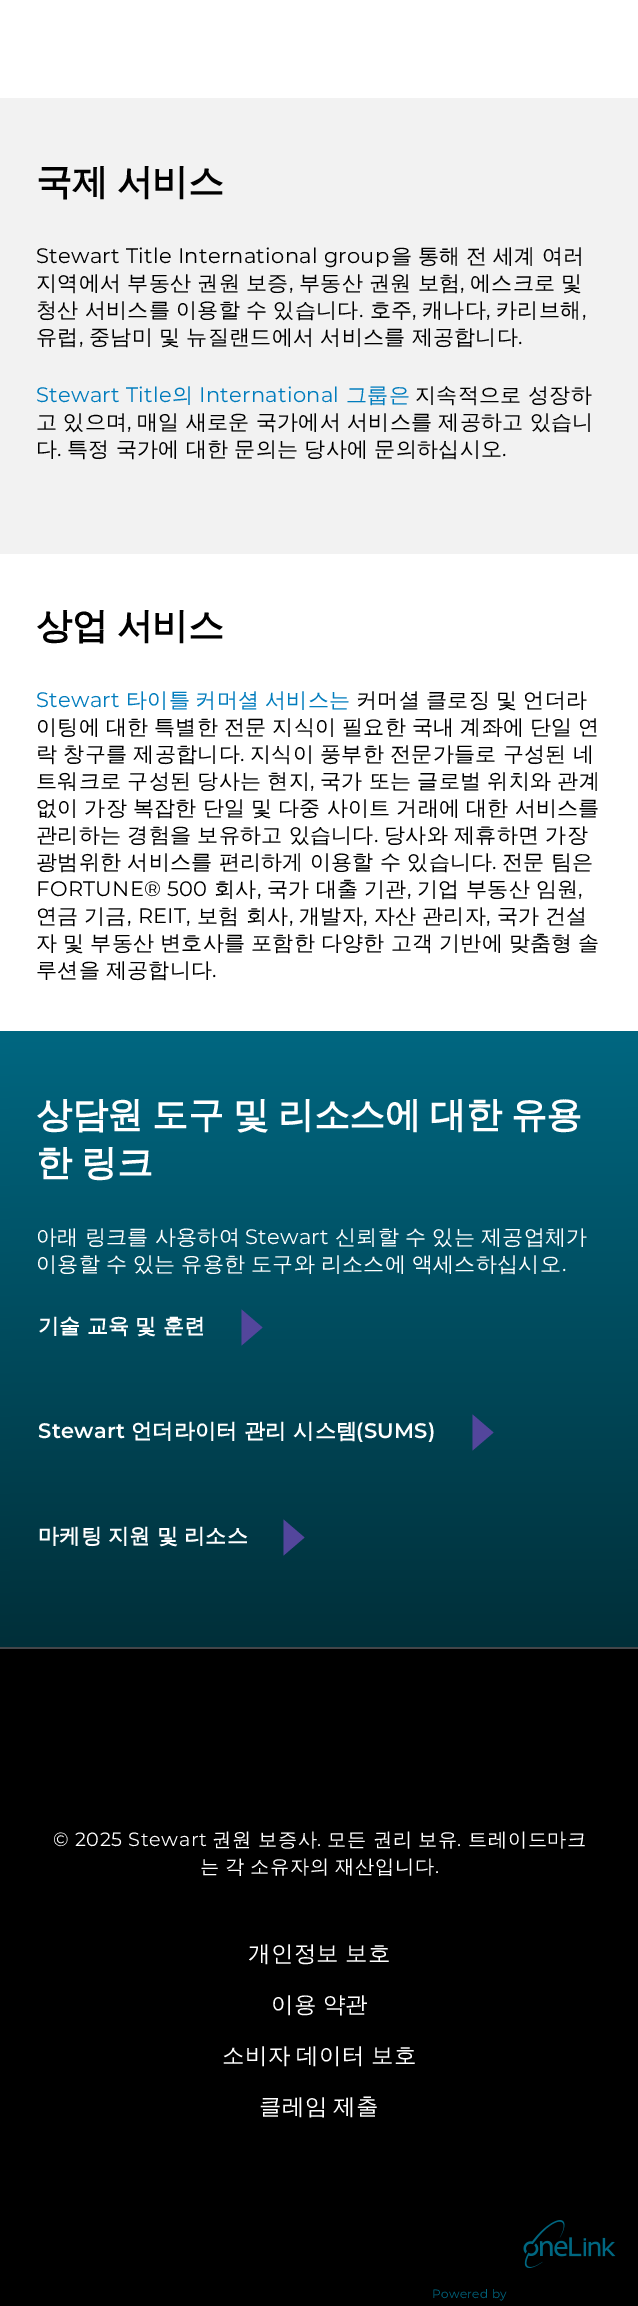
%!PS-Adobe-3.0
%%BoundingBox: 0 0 638 2306
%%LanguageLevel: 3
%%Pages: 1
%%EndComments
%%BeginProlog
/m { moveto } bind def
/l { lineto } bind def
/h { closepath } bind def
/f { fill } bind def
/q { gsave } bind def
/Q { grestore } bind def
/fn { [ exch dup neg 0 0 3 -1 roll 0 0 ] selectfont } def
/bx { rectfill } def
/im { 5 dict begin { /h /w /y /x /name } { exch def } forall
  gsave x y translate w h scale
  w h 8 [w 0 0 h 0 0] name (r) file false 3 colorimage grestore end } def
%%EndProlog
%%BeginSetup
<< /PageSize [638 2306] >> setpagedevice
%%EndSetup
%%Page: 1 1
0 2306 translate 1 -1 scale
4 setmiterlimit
1 setgray
0 0 638 2306 bx
0.949 setgray
0 98 638 456 bx
/WenQuanYiZenHei-Bold 36 fn
0 setgray
36 194 m -0.5 0 32 -0.5 0 (국제 서비스) awidthshow
/Montserrat-Regular 21 fn
36 263 m 0.3 0 (Stewart Title International group) ashow
/WenQuanYiZenHei-Medium 21 fn
391 263 m 0.3 0 (을) ashow
418 263 m 0.3 0 (통해) ashow
466 263 m 0.3 0 (전) ashow
493 263 m 0.3 0 (세계) ashow
542 263 m 0.3 0 (여러) ashow
36 290 m -0.5 0 32 0.3 0 (지역에서 부동산 권원 보증) awidthshow
/Montserrat-Regular 21 fn
289 290 m 0.3 0 (,) ashow
/WenQuanYiZenHei-Medium 21 fn
299 290 m -0.5 0 32 0.3 0 (부동산 권원 보험) awidthshow
/Montserrat-Regular 21 fn
460 290 m 0.3 0 (,) ashow
/WenQuanYiZenHei-Medium 21 fn
470 290 m -0.5 0 32 0.3 0 (에스크로 및) awidthshow
36 317 m -0.5 0 32 0.3 0 (청산 서비스를 이용할 수 있습니다) awidthshow
/Montserrat-Regular 21 fn
359 317 m 0.3 0 (.) ashow
/WenQuanYiZenHei-Medium 21 fn
370 317 m 0.3 0 (호주) ashow
/Montserrat-Regular 21 fn
412 317 m 0.3 0 (,) ashow
/WenQuanYiZenHei-Medium 21 fn
422 317 m 0.3 0 (캐나다) ashow
/Montserrat-Regular 21 fn
486 317 m 0.3 0 (,) ashow
/WenQuanYiZenHei-Medium 21 fn
496 317 m 0.3 0 (카리브해) ashow
/Montserrat-Regular 21 fn
582 317 m 0.3 0 (,) ashow
/WenQuanYiZenHei-Medium 21 fn
36 344 m 0.3 0 (유럽) ashow
/Montserrat-Regular 21 fn
79 344 m 0.3 0 (,) ashow
/WenQuanYiZenHei-Medium 21 fn
89 344 m -0.5 0 32 0.3 0 (중남미 및 뉴질랜드에서 서비스를 제공합니다) awidthshow
/Montserrat-Regular 21 fn
518 344 m 0.3 0 (.) ashow
0 0.486 0.741 setrgbcolor
36 402 m 0.3 0 (Stewart Title) ashow
/WenQuanYiZenHei-Medium 21 fn
172 402 m 0.3 0 (의) ashow
/Montserrat-Regular 21 fn
199 402 m 0.3 0 (International) ashow
/WenQuanYiZenHei-Medium 21 fn
346 402 m 0.3 0 (그룹은) ashow
0 setgray
415 402 m 0.3 0 (지속적으로 성장하) ashow
36 429 m -0.5 0 32 0.3 0 (고 있으며) awidthshow
/Montserrat-Regular 21 fn
127 429 m 0.3 0 (,) ashow
/WenQuanYiZenHei-Medium 21 fn
137 429 m -0.5 0 32 0.3 0 (매일 새로운 국가에서 서비스를 제공하고 있습니) awidthshow
36 456 m 0.3 0 (다) ashow
/Montserrat-Regular 21 fn
57 456 m 0.3 0 (.) ashow
/WenQuanYiZenHei-Medium 21 fn
67 456 m -0.5 0 32 0.3 0 (특정 국가에 대한 문의는 당사에 문의하십시오) awidthshow
/Montserrat-Regular 21 fn
502 456 m 0.3 0 (.) ashow
/WenQuanYiZenHei-Bold 36 fn
36 638 m -0.5 0 32 -0.5 0 (상업 서비스) awidthshow
/Montserrat-Regular 21 fn
0 0.486 0.741 setrgbcolor
36 707 m 0.3 0 (Stewart) ashow
/WenQuanYiZenHei-Medium 21 fn
126 707 m -1 0 32 0.3 0 (타이틀 커머셜 서비스는) awidthshow
0 setgray
356 707 m -0.5 0 32 0.3 0 (커머셜 클로징 및 언더라) awidthshow
36 734 m -0.75 0 32 0.3 0 (이팅에 대한 특별한 전문 지식이 필요한 국내 계좌에 단일 연) awidthshow
36 761 m -0.5 0 32 0.3 0 (락 창구를 제공합니다) awidthshow
/Montserrat-Regular 21 fn
240 761 m 0.3 0 (.) ashow
/WenQuanYiZenHei-Medium 21 fn
250 761 m -0.5 0 32 0.3 0 (지식이 풍부한 전문가들로 구성된 네) awidthshow
36 788 m -0.5 0 32 0.3 0 (트워크로 구성된 당사는 현지) awidthshow
/Montserrat-Regular 21 fn
310 788 m 0.3 0 (,) ashow
/WenQuanYiZenHei-Medium 21 fn
320 788 m -0.5 0 32 0.3 0 (국가 또는 글로벌 위치와 관계) awidthshow
36 815 m -0.75 0 32 0.3 0 (없이 가장 복잡한 단일 및 다중 사이트 거래에 대한 서비스를) awidthshow
36 842 m -0.5 0 32 0.3 0 (관리하는 경험을 보유하고 있습니다) awidthshow
/Montserrat-Regular 21 fn
374 842 m 0.3 0 (.) ashow
/WenQuanYiZenHei-Medium 21 fn
384 842 m -0.5 0 32 0.3 0 (당사와 제휴하면 가장) awidthshow
36 869 m -0.5 0 32 0.3 0 (광범위한 서비스를 편리하게 이용할 수 있습니다) awidthshow
/Montserrat-Regular 21 fn
492 869 m 0.3 0 (.) ashow
/WenQuanYiZenHei-Medium 21 fn
502 869 m -0.5 0 32 0.3 0 (전문 팀은) awidthshow
/Montserrat-Regular 21 fn
36 896 m 0.3 0 (FORTUNE® 500) ashow
/WenQuanYiZenHei-Medium 21 fn
214 896 m 0.3 0 (회사) ashow
/Montserrat-Regular 21 fn
257 896 m 0.3 0 (,) ashow
/WenQuanYiZenHei-Medium 21 fn
267 896 m 0.3 0 (국가) ashow
316 896 m 0.3 0 (대출) ashow
364 896 m 0.3 0 (기관) ashow
/Montserrat-Regular 21 fn
407 896 m 0.3 0 (,) ashow
/WenQuanYiZenHei-Medium 21 fn
417 896 m 0.3 0 (기업) ashow
466 896 m 0.3 0 (부동산) ashow
536 896 m 0.3 0 (임원) ashow
/Montserrat-Regular 21 fn
578 896 m 0.3 0 (,) ashow
/WenQuanYiZenHei-Medium 21 fn
36 923 m 0.3 0 (연금) ashow
84 923 m 0.3 0 (기금) ashow
/Montserrat-Regular 21 fn
127 923 m 0.3 0 (, REIT,) ashow
/WenQuanYiZenHei-Medium 21 fn
197 923 m 0.3 0 (보험) ashow
246 923 m 0.3 0 (회사) ashow
/Montserrat-Regular 21 fn
289 923 m 0.3 0 (,) ashow
/WenQuanYiZenHei-Medium 21 fn
299 923 m 0.3 0 (개발자) ashow
/Montserrat-Regular 21 fn
363 923 m 0.3 0 (,) ashow
/WenQuanYiZenHei-Medium 21 fn
374 923 m 0.3 0 (자산) ashow
422 923 m 0.3 0 (관리자) ashow
/Montserrat-Regular 21 fn
486 923 m 0.3 0 (,) ashow
/WenQuanYiZenHei-Medium 21 fn
497 923 m 0.3 0 (국가) ashow
545 923 m 0.3 0 (건설) ashow
36 950 m -0.75 0 32 0.3 0 (자 및 부동산 변호사를 포함한 다양한 고객 기반에 맞춤형 솔) awidthshow
36 977 m -0.75 0 32 0.3 0 (루션을 제공합니다) awidthshow
/Montserrat-Regular 21 fn
212 977 m 0.3 0 (.) ashow
q 0 1031 m 638 1031 l 638 1647 l 0 1647 l h clip newpath
<< /ShadingType 2 /ColorSpace /DeviceRGB /Coords [319 1031 320 1647] /Extend [true true] /Function << /FunctionType 2 /Domain [0 1] /C0 [0 0.404 0.506] /C1 [0 0.184 0.224] /N 1 >> >> shfill Q
/WenQuanYiZenHei-Bold 36 fn
1 setgray
36 1127 m -0.5 0 32 -0.5 0 (상담원 도구 및 리소스에 대한 유용) awidthshow
36 1175 m -0.5 0 32 -0.5 0 (한 링크) awidthshow
/WenQuanYiZenHei-Medium 21 fn
36 1244 m -0.5 0 32 0.3 0 (아래 링크를 사용하여) awidthshow
/Montserrat-Regular 21 fn
245 1244 m 0.3 0 (Stewart) ashow
/WenQuanYiZenHei-Medium 21 fn
335 1244 m -0.5 0 32 0.3 0 (신뢰할 수 있는 제공업체가) awidthshow
36 1271 m -0.75 0 32 0.3 0 (이용할 수 있는 유용한 도구와 리소스에 액세스하십시오) awidthshow
/Montserrat-Regular 21 fn
562 1271 m 0.3 0 (.) ashow
/WenQuanYiZenHei-Bold 21 fn
38 1333 m -0.5 0 32 0.3 0 (기술 교육 및 훈련) awidthshow
0.325 0.275 0.612 setrgbcolor
241.5 1345.5 m 241.5 1309.5 l 262.5 1327.5 l h f
/Montserrat-SemiBold 21 fn
1 setgray
38 1438 m 0.3 0 (Stewart) ashow
/WenQuanYiZenHei-Bold 21 fn
131 1438 m 0.3 0 (언더라이터 관리 시스템) ashow
/Montserrat-SemiBold 21 fn
356 1438 m 0.3 0 (\(SUMS\)) ashow
0.325 0.275 0.612 setrgbcolor
472.5 1450.5 m 472.5 1414.5 l 493.5 1432.5 l h f
/WenQuanYiZenHei-Bold 21 fn
1 setgray
38 1543 m -0.5 0 32 0.3 0 (마케팅 지원 및 리소스) awidthshow
0.325 0.275 0.612 setrgbcolor
283.5 1555.5 m 283.5 1519.5 l 304.5 1537.5 l h f
0 setgray
0 1649 638 657 bx
0.263 0.275 0.29 setrgbcolor
0 1647 638 2 bx
/Montserrat-Regular 19.25 fn
1 setgray
53 1846 m 0.6 0 (© 2025 Stewart) ashow
/WenQuanYiZenHei-Medium 19.25 fn
212 1846 m 0.6 0 (권원) ashow
258 1846 m 0.6 0 (보증사) ashow
/Montserrat-Regular 19.25 fn
317 1846 m 0.6 0 (.) ashow
/WenQuanYiZenHei-Medium 19.25 fn
327 1846 m 0.6 0 (모든) ashow
373 1846 m 0.6 0 (권리) ashow
418 1846 m 0.6 0 (보유) ashow
/Montserrat-Regular 19.25 fn
457 1846 m 0.6 0 (.) ashow
/WenQuanYiZenHei-Medium 19.25 fn
468 1846 m 0.6 0 (트레이드마크) ashow
200 1873 m -1 0 32 0.6 0 (는 각 소유자의 재산입니다) awidthshow
/Montserrat-Regular 19.25 fn
435 1873 m 0.6 0 (.) ashow
/WenQuanYiZenHei-Medium 22.5 fn
248 1961 m -1 0 32 0.3 0 (개인정보 보호) awidthshow
271 2012 m -1 0 32 0.3 0 (이용 약관) awidthshow
222 2063 m -1 0 32 0.3 0 (소비자 데이터 보호) awidthshow
259 2114 m -1 0 32 0.3 0 (클레임 제출) awidthshow
(image0.raw) 523 2220 93 48 im
/Montserrat-Regular 12 fn
0 0.404 0.506 setrgbcolor
432 2298 m 0.3 0 (Powered by) ashow
showpage
%%EOF
